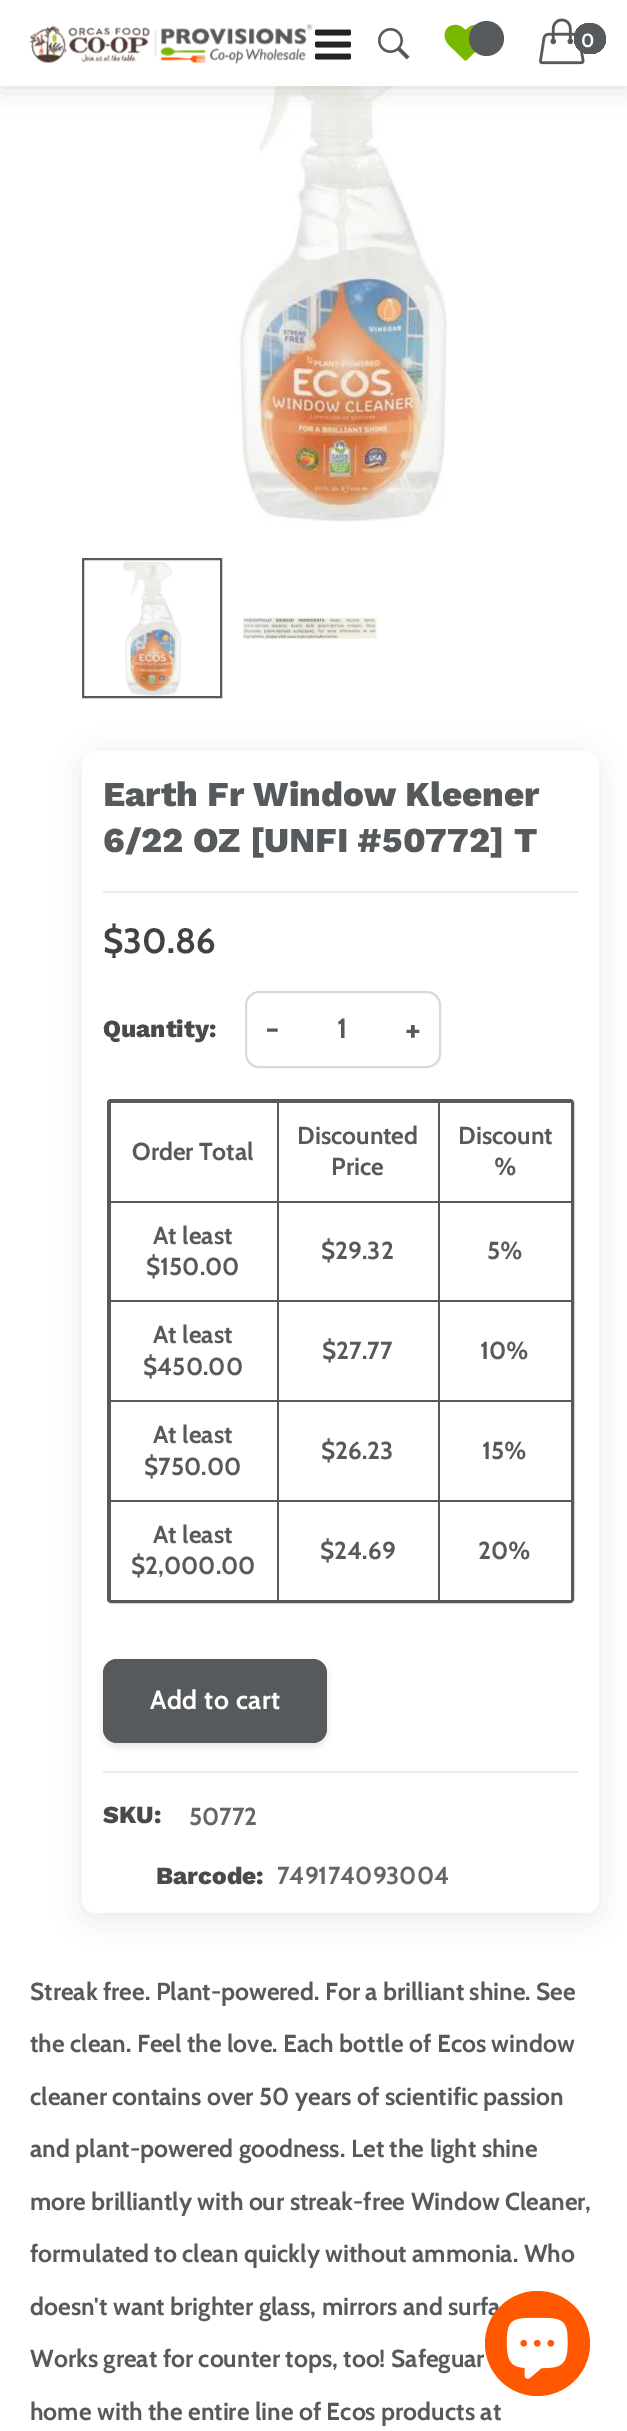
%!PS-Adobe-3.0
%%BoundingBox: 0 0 627 2431
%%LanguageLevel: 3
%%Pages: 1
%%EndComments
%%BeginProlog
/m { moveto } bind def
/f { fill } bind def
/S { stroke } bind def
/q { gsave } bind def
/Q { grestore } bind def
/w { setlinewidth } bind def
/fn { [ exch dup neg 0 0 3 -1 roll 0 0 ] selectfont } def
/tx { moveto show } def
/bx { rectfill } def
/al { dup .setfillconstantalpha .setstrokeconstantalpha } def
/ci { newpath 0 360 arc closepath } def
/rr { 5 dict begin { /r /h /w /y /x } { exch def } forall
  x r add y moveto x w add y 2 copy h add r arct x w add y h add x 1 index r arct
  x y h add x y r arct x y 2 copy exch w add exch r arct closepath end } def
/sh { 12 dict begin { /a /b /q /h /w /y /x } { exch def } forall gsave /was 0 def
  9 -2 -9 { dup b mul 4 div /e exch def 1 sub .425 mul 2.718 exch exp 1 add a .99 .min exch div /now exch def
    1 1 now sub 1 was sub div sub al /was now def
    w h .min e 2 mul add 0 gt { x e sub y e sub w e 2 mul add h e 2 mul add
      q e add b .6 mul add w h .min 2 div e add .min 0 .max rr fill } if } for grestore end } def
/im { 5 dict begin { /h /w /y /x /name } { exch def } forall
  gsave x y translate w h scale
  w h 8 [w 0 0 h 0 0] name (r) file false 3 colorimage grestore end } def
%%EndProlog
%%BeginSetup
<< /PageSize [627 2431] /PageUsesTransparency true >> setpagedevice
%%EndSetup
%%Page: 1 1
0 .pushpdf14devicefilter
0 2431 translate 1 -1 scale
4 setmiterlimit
1 setgray
0 0 627 2431 bx
(image5.raw) 233 86 214 436 im
0 setgray
0 0 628 86 0 13 0.15 sh
1 setgray
0 0 627 86 bx
(image0.raw) 30 24 283 40 im
(image1.raw) 315 29 36 31 im
(image2.raw) 378 28 32 32 im
(image3.raw) 444 24 33 37 im
0.337 0.353 0.361 setrgbcolor
486.5 38.5 17.5 ci f
(image4.raw) 539 18 46 47 im
574 23 32 31 15.5 rr f
q
574 23 32 31 15.5 rr clip newpath
588.5 40.5 17.5 ci f
Q
/Cabin-Bold 19 fn
1 setgray
(0) 581 47 tx
(image6.raw) 123 561 59 135 im
0.337 0.353 0.361 setrgbcolor
2 w
83 559 138 138 rectstroke
(image7.raw) 242 615 138 25 im
0 setgray
82 758 517 1162 14 14 0.08 sh
1 setgray
82 751 517 1162 14 rr f
0.922 setgray
103 891 475 2 bx
/WorkSans-ExtraBold 35 fn
0.337 0.353 0.361 setrgbcolor
(Earth Fr Window Kleener) 103 806 tx
(6/22 OZ [UNFI #50772] T) 103 852 tx
/Cabin-Bold 35 fn
0.247 0.263 0.271 setrgbcolor
($30.86) 103 953 tx
/WorkSans-ExtraBold 24.5 fn
0.29 setgray
(Quantity:) 103 1037 tx
0.851 setgray
246 992 194 75 13 rr S
/Cabin-Bold 35 fn
0.337 0.353 0.361 setrgbcolor
(-) 265 1041 tx
/Cabin-Bold 28 fn
(1) 337 1038 tx
/Cabin-Bold 35 fn
(+) 405 1041 tx
108 1100 465 502 3 rr S
438 1101 134 2 bx
438 1201 134 2 bx
438 1300 134 2 bx
438 1400 134 2 bx
438 1500 134 2 bx
571 1500 1 101 bx
438 1600 134 1 bx
438 1500 2 101 bx
277 1500 162 2 bx
438 1400 2 102 bx
277 1400 162 2 bx
438 1300 2 102 bx
277 1300 162 2 bx
438 1201 2 101 bx
277 1201 162 2 bx
438 1101 2 101 bx
277 1101 162 2 bx
277 1600 162 1 bx
277 1500 2 101 bx
109 1500 169 2 bx
277 1400 2 102 bx
109 1400 169 2 bx
277 1300 2 102 bx
109 1300 169 2 bx
277 1201 2 101 bx
109 1201 169 2 bx
277 1101 2 101 bx
109 1101 169 2 bx
109 1600 169 1 bx
109 1500 2 101 bx
109 1400 2 102 bx
109 1300 2 102 bx
109 1201 2 101 bx
109 1101 2 101 bx
/Cabin-Bold 24.5 fn
(Order Total) 132 1160 tx
(Discounted) 297 1144 tx
(Price) 331 1175 tx
571 1400 1 102 bx
571 1300 1 102 bx
571 1201 1 101 bx
571 1101 1 101 bx
(Discount) 458 1144 tx
(%) 494 1175 tx
(At least) 153 1244 tx
($150.00) 146 1275 tx
($29.32) 321 1259 tx
(5%) 487 1259 tx
(At least) 153 1343 tx
($450.00) 143 1375 tx
($27.77) 322 1359 tx
(10%) 480 1359 tx
(At least) 153 1443 tx
($750.00) 144 1475 tx
($26.23) 321 1459 tx
(15%) 482 1459 tx
(At least) 153 1543 tx
($2,000.00) 131 1574 tx
($24.69) 320 1559 tx
(20%) 478 1559 tx
0 setgray
103 1663 224 84 14 3.5 0.1 sh
0.337 0.353 0.361 setrgbcolor
103 1659 224 84 14 rr f
/Cabin-Bold 26.25 fn
1 setgray
150 1709 m 0.5 0 (Add to cart) ashow
0.922 setgray
103 1771 475 2 bx
/WorkSans-ExtraBold 24.5 fn
0.29 setgray
(SKU:) 103 1823 tx
/Cabin-Bold 24.5 fn
0.4 setgray
(50772) 189 1825 tx
/WorkSans-ExtraBold 24.5 fn
0.29 setgray
(Barcode:) 156 1884 tx
/Cabin-Bold 24.5 fn
0.4 setgray
(749174093004) 277 1884 tx
0.337 0.353 0.361 setrgbcolor
(Streak free. Plant-powered. For a brilliant shine. See) 30 2000 tx
(the clean. Feel the love. Each bottle of Ecos window) 30 2052 tx
(cleaner contains over 50 years of scientific passion) 30 2105 tx
(and plant-powered goodness. Let the light shine) 30 2157 tx
(more brilliantly with our streak-free Window Cleaner,) 30 2210 tx
(formulated to clean quickly without ammonia. Who) 30 2262 tx
(doesn't want brighter glass, mirrors and surfa) 30 2315 tx
(Works great for counter tops, too! Safeguar) 30 2367 tx
(home with the entire line of Ecos products at) 30 2420 tx
1 0.345 0 setrgbcolor
537.5 2343.5 52.5 ci f
(image8.raw) 506 2317 62 62 im
.poppdf14devicefilter showpage
%%EOF
